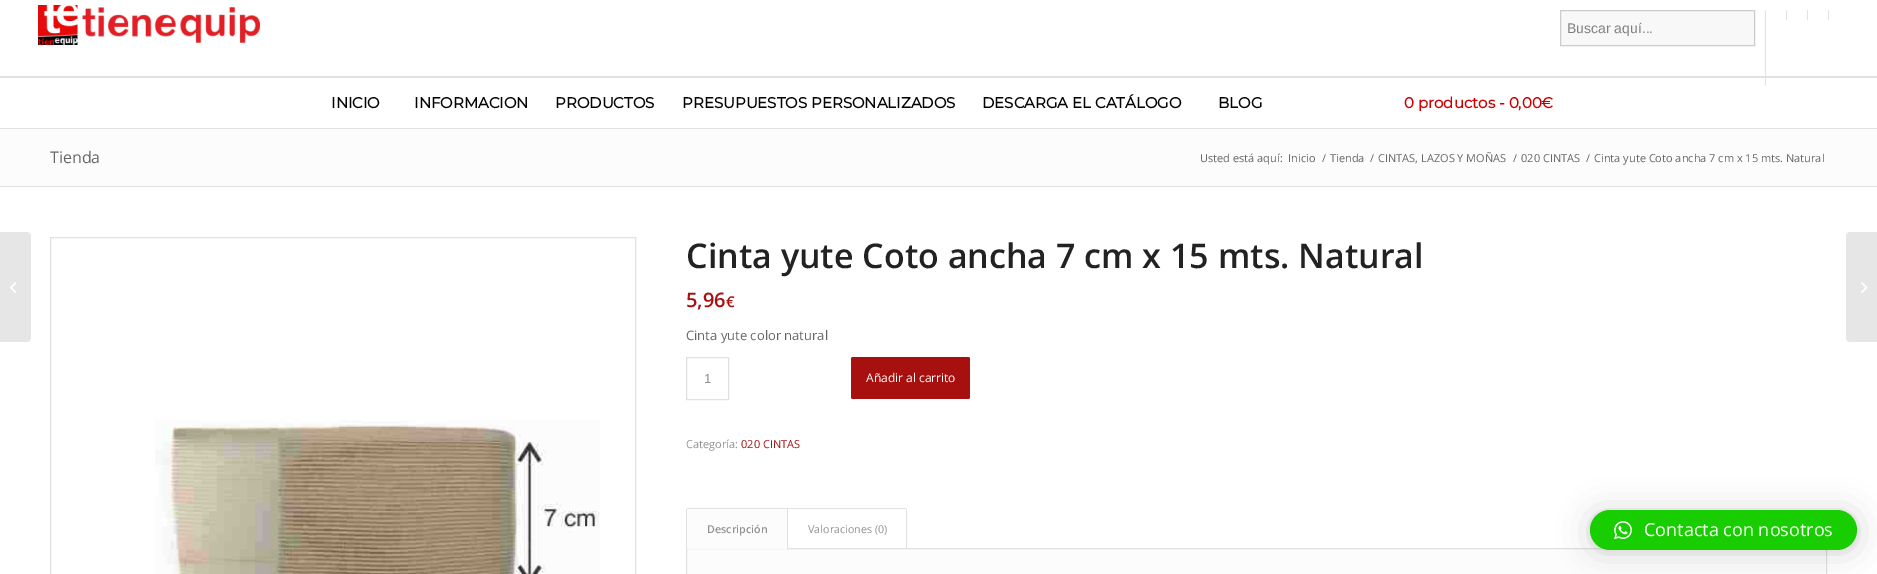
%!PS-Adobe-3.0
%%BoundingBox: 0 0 1877 574
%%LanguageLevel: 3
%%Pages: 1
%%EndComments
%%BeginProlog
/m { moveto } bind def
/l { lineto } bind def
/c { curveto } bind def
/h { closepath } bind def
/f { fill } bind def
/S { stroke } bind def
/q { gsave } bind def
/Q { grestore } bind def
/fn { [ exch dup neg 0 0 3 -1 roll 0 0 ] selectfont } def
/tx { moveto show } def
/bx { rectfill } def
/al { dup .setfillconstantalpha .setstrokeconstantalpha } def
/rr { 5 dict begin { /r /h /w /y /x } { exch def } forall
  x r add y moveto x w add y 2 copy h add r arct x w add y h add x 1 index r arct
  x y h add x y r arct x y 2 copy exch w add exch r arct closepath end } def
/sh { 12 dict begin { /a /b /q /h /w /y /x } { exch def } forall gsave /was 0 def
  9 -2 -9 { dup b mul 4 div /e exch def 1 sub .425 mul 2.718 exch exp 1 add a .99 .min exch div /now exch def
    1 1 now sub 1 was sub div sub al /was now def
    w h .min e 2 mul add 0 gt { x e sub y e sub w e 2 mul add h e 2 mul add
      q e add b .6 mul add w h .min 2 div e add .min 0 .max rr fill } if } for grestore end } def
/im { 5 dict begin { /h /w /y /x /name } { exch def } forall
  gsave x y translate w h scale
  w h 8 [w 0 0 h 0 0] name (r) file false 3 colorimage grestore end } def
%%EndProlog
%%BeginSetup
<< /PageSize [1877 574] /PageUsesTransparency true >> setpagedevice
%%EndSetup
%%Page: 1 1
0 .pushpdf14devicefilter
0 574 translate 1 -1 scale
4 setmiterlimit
1 setgray
0 0 1877 574 bx
(image0.raw) 38 5 222 40 im
0.882 setgray
1786 10 1 10 bx
1807 10 1 10 bx
1828 10 1 10 bx
0 76 1877 2 bx
1765 10 1 76 bx
0.973 setgray
1560.5 10.5 m 1754.5 10.5 l 1754.5 45.5 l 1560.5 45.5 l h q f Q
0.8 setgray
S
/LiberationSans-Regular 14 fn
0.502 setgray
(Buscar aquí...) 1567 33 tx
0.882 setgray
0 128 1877 1 bx
/Montserrat-Bold 15 fn
0 setgray
(INICIO) 331 108 tx
(INFORMACION) 414 108 tx
(PRODUCTOS) 555 108 tx
(PRESUPUESTOS PERSONALIZADOS) 682 108 tx
(DESCARGA EL CATÁLOGO) 982 108 tx
(BLOG) 1218 108 tx
0.8 0 0 setrgbcolor
(0 productos - 0,00€) 1404 108 tx
0.902 setgray
0 232 m 27 232 l 29 232 31 234 31 236 c 31 338 l 31 340 29 342 27 342 c 0 342 l h f
(image1.raw) 10 282 7 11 im
0.988 setgray
0 129 1877 57 bx
/OpenSans-Regular 16 fn
0.4 setgray
(Tienda) 50 163 tx
/OpenSans-Regular 11 fn
(Usted está aquí:) 1200 162 tx
(Inicio) 1288 162 tx
(/) 1322 162 tx
(Tienda) 1330 162 tx
(/) 1370 162 tx
(CINTAS, LAZOS Y MOÑAS) 1378 162 tx
(/) 1513 162 tx
(020 CINTAS) 1521 162 tx
(/) 1586 162 tx
(Cinta yute Coto ancha 7 cm x 15 mts. Natural) 1594 162 tx
0.882 setgray
0 186 1877 1 bx
50.5 237.5 585 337 rectstroke
(image2.raw) 155 420 445 154 im
/OpenSans-SemiBold 34 fn
0.133 setgray
(Cinta yute Coto ancha 7 cm x 15 mts. Natural) 686 268 tx
/OpenSans-SemiBold 20 fn
0.659 0.063 0.063 setrgbcolor
(5,96) 686 307 tx
/OpenSans-SemiBold 15 fn
(€) 726 307 tx
/OpenSans-Regular 13 fn
0.4 setgray
(Cinta yute color natural) 686 340 tx
0.882 setgray
686.5 357.5 42 42 rectstroke
/LiberationSans-Regular 13 fn
0.569 setgray
(1) 704 383 tx
0.659 0.063 0.063 setrgbcolor
851 357 119 42 2 rr f
/OpenSans-Regular 12 fn
1 setgray
(Añadir al carrito) 866 382 tx
/OpenSans-Regular 11 fn
0.569 setgray
(Categoría:) 686 448 tx
0.659 0.063 0.063 setrgbcolor
(020 CINTAS) 741 448 tx
0.988 setgray
686.5 548.5 m 1826.5 548.5 l 1826.5 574.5 l 686.5 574.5 l h q f Q
0.882 setgray
S
0.988 setgray
686 508 101 41 bx
0.882 setgray
787 508 119 1 bx
687 508 101 1 bx
787 508 1 41 bx
686 509 1 40 bx
/OpenSans-SemiBold 10.75 fn
0.569 setgray
(Descripción) 707 533 tx
0.882 setgray
906 509 1 40 bx
/OpenSans-Regular 10.75 fn
0.569 setgray
(Valoraciones \(0\)) 808 533 tx
0.902 setgray
1850 232 m 1877 232 l 1877 342 l 1850 342 l 1848 342 1846 340 1846 338 c 1846 236 l 1846 234 1848 232 1850 232 c h f
(image3.raw) 1861 282 7 11 im
0 setgray
1590 512 267 40 20 16 0.16 sh
1590 511 267 40 20 3 0.06 sh
0.094 0.808 0 setrgbcolor
1590 510 267 40 20 rr f
(image4.raw) 1614 521 18 19 im
/OpenSans-Regular 18 fn
1 setgray
(Contacta con nosotros) 1644 536 tx
.poppdf14devicefilter showpage
%%EOF
